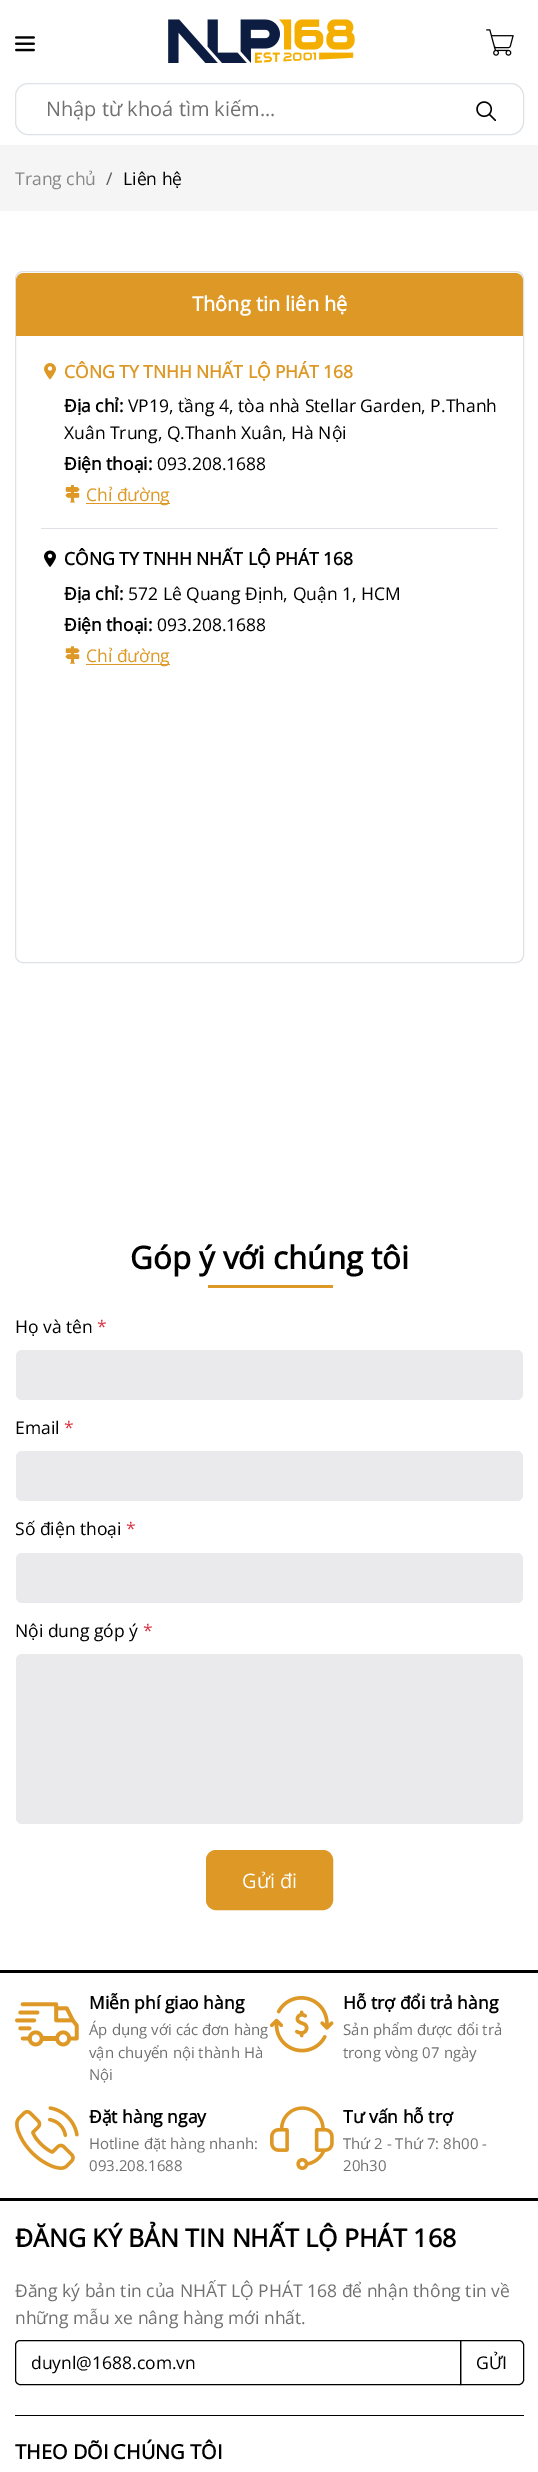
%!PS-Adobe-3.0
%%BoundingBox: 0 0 538 2472
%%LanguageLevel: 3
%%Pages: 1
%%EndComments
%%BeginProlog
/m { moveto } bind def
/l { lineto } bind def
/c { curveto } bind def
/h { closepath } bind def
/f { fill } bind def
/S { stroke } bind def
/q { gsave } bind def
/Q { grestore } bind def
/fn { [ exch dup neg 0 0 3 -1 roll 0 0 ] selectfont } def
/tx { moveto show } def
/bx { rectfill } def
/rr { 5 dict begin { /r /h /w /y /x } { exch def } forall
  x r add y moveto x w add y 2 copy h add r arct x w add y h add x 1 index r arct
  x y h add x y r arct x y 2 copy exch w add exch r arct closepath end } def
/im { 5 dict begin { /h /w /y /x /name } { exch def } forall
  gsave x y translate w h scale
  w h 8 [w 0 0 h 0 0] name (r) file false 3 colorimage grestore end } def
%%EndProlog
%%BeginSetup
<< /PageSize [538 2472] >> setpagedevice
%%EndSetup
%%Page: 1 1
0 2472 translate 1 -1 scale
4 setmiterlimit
1 setgray
0 0 538 2472 bx
(image0.raw) 15 36 20 16 im
(image1.raw) 168 19 187 44 im
(image2.raw) 486 29 28 27 im
0.871 0.886 0.902 setrgbcolor
15.5 83.5 508 51 12.5 rr S
/OpenSans-Regular 20 fn
0.439 setgray
(Nhập từ khoá tìm kiếm...) 46 116 tx
(image3.raw) 476 101 20 20 im
0.961 setgray
0 145 538 66 bx
/OpenSans-Regular 17.5 fn
0.529 setgray
(Trang chủ) 15 185 tx
0.337 0.349 0.361 setrgbcolor
(/) 106 185 tx
0 setgray
(Liên hệ) 123 185 tx
0.871 0.886 0.902 setrgbcolor
15.5 271.5 508 691 7.5 rr S
0.867 0.596 0.145 setrgbcolor
24 273 m 515 273 l 519.5 273 523 276.5 523 281 c 523 336 l 16 336 l 16 281 l 16 276.5 19.5 273 24 273 c h f
/OpenSans-Bold 20 fn
1 setgray
(Thông tin liên hệ) 192 311 tx
(image4.raw) 44 363 12 17 im
/OpenSans-Bold 17.5 fn
0.867 0.596 0.145 setrgbcolor
(CÔNG TY TNHH NHẤT LỘ PHÁT 168) 64 378 tx
0 setgray
(Địa chỉ:) 64 412 tx
/OpenSans-Regular 17.5 fn
(VP19, tầng 4, tòa nhà Stellar Garden, P.Thanh) 128 412 tx
(Xuân Trung, Q.Thanh Xuân, Hà Nội) 64 439 tx
/OpenSans-Bold 17.5 fn
(Điện thoại:) 64 470 tx
/OpenSans-Regular 17.5 fn
(093.208.1688) 157 470 tx
(image5.raw) 65 485 15 18 im
0.867 0.596 0.145 setrgbcolor
86 503 84 1 bx
(Chỉ đường) 86 501 tx
0.871 0.886 0.902 setrgbcolor
41 528 457 1 bx
(image6.raw) 44 550 12 17 im
/OpenSans-Bold 17.5 fn
0 setgray
(CÔNG TY TNHH NHẤT LỘ PHÁT 168) 64 565 tx
(Địa chỉ:) 64 600 tx
/OpenSans-Regular 17.5 fn
(572 Lê Quang Định, Quận 1, HCM) 128 600 tx
/OpenSans-Bold 17.5 fn
(Điện thoại:) 64 631 tx
/OpenSans-Regular 17.5 fn
(093.208.1688) 157 631 tx
(image7.raw) 65 646 15 18 im
0.867 0.596 0.145 setrgbcolor
86 664 84 1 bx
(Chỉ đường) 86 662 tx
/OpenSans-Bold 31.25 fn
0 setgray
(Góp ý với chúng tôi) 130 1269 tx
0.867 0.596 0.145 setrgbcolor
208 1285 125 3 bx
/OpenSans-Regular 17.5 fn
0 setgray
(Họ và tên) 15 1333 tx
0.863 0.208 0.271 setrgbcolor
(*) 97 1333 tx
0.918 0.918 0.925 setrgbcolor
16 1350 507 50 6 rr f
0 setgray
(Email) 15 1434 tx
0.863 0.208 0.271 setrgbcolor
(*) 64 1434 tx
0.918 0.918 0.925 setrgbcolor
16 1451 507 50 6 rr f
0 setgray
(Số điện thoại) 15 1535 tx
0.863 0.208 0.271 setrgbcolor
(*) 126 1535 tx
0.918 0.918 0.925 setrgbcolor
16 1553 507 50 6 rr f
0 setgray
(Nội dung góp ý) 15 1637 tx
0.863 0.208 0.271 setrgbcolor
(*) 143 1637 tx
0.918 0.918 0.925 setrgbcolor
16 1654 507 170 6 rr f
0.867 0.596 0.145 setrgbcolor
206.5 1850.5 126 59 9.5 rr q f Q
S
/OpenSans-Regular 20 fn
1 setgray
(Gửi đi) 242 1888 tx
0 setgray
0 1970 538 3 bx
0 2198 538 3 bx
(image8.raw) 15 2002 64 45 im
/OpenSans-Bold 17.5 fn
(Miễn phí giao hàng) 89 2009 tx
/OpenSans-Regular 15 fn
0.439 setgray
(Áp dụng với các đơn hàng) 89 2035 tx
(vận chuyển nội thành Hà) 89 2058 tx
(Nội) 89 2080 tx
(image9.raw) 270 1996 64 57 im
/OpenSans-Bold 17.5 fn
0 setgray
(Hỗ trợ đổi trả hàng) 343 2009 tx
/OpenSans-Regular 15 fn
0.439 setgray
(Sản phẩm được đổi trả) 343 2035 tx
(trong vòng 07 ngày) 343 2058 tx
(image10.raw) 15 2106 64 64 im
/OpenSans-Bold 17.5 fn
0 setgray
(Đặt hàng ngay) 89 2123 tx
/OpenSans-Regular 15 fn
0.439 setgray
(Hotline đặt hàng nhanh:) 89 2149 tx
(093.208.1688) 89 2171 tx
(image11.raw) 270 2106 64 64 im
/OpenSans-Bold 17.5 fn
0 setgray
(Tư vấn hỗ trợ) 343 2123 tx
/OpenSans-Regular 15 fn
0.439 setgray
(Thứ 2 - Thứ 7: 8h00 -) 343 2149 tx
(20h30) 343 2171 tx
/OpenSans-Bold 25 fn
0 setgray
(ĐĂNG KÝ BẢN TIN NHẤT LỘ PHÁT 168) 15 2247 tx
/OpenSans-Regular 17.5 fn
0.439 setgray
(Đăng ký bản tin của NHẤT LỘ PHÁT 168 để nhận thông tin về) 15 2297 tx
(những mẫu xe nâng hàng mới nhất.) 15 2324 tx
0 setgray
20 2340.5 m 460.5 2340.5 l 460.5 2384.5 l 20 2384.5 l 17.5 2384.5 15.5 2382.5 15.5 2380 c 15.5 2345 l 15.5 2342.5 17.5 2340.5 20 2340.5 c h S
(duynl@1688.com.vn) 31 2369 tx
460.5 2340.5 m 519 2340.5 l 521.5 2340.5 523.5 2342.5 523.5 2345 c 523.5 2380 l 523.5 2382.5 521.5 2384.5 519 2384.5 c 460.5 2384.5 l h S
(GỬI) 476 2369 tx
15 2415 509 1 bx
/OpenSans-Bold 20 fn
(THEO DÕI CHÚNG TÔI) 15 2459 tx
showpage
%%EOF
